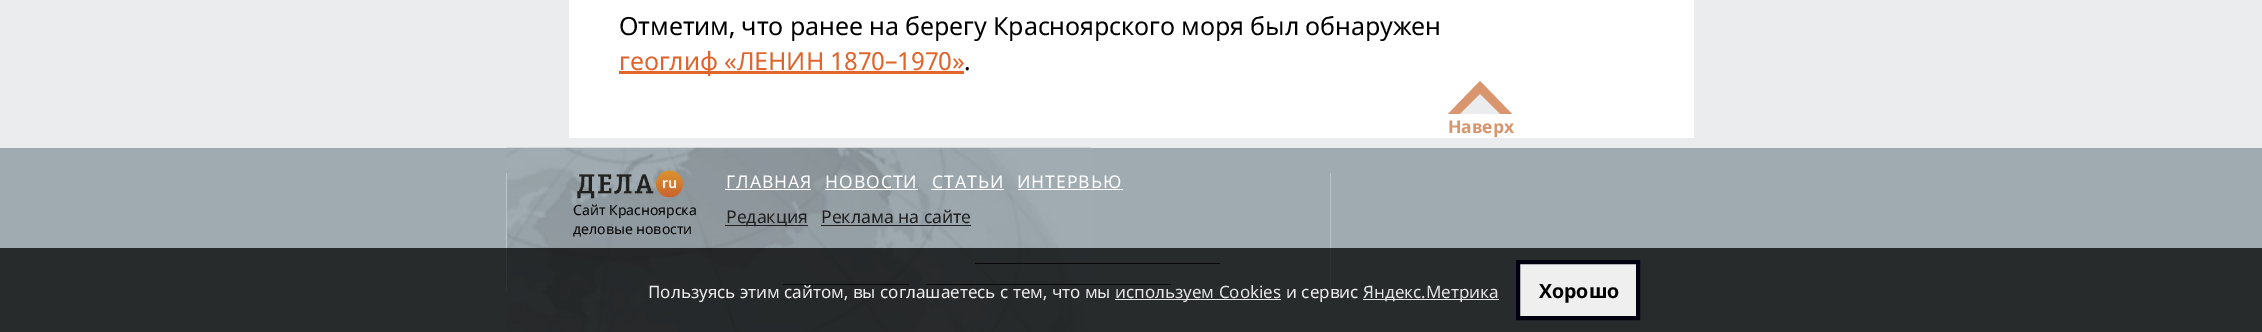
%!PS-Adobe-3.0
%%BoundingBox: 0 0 2262 332
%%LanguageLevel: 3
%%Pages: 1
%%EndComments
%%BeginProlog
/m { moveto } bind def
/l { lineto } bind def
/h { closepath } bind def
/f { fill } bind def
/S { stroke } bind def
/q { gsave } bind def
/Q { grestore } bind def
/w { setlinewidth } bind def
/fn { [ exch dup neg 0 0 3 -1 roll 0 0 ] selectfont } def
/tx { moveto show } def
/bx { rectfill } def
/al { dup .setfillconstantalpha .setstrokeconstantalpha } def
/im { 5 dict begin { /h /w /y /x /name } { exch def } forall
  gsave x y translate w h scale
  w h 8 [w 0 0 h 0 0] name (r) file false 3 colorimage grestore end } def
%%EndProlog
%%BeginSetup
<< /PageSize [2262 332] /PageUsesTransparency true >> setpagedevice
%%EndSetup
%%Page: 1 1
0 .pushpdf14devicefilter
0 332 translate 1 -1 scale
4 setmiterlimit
0.922 0.925 0.933 setrgbcolor
0 0 2262 332 bx
1 setgray
569 0 1125 138 bx
/NotoSans-Regular 25 fn
0 setgray
619 35 m -0.12 0 (Отметим, что ранее на берегу Красноярского моря был обнаружен) ashow
0.878 0.392 0.173 setrgbcolor
619 71 345 3 bx
619 70 m -0.12 0 (геоглиф «ЛЕНИН 1870–1970») ashow
0 setgray
964 70 m -0.12 0 (.) ashow
0.627 0.671 0.694 setrgbcolor
0 148 2262 184 bx
(image0.raw) 506 147 586 185 im
0.737 0.769 0.784 setrgbcolor
1330 173 1 118 bx
506 173 1 118 bx
(image1.raw) 577 170 106 29 im
/NotoSans-Regular 14 fn
0 setgray
(Сайт Красноярска) 573 215 tx
(деловые новости) 573 234 tx
/NotoSans-Regular 17.5 fn
1 setgray
726 188 m 1 0 (ГЛАВНАЯ) ashow
725 189 86 1 bx
825 188 m 1 0 (НОВОСТИ) ashow
825 189 93 1 bx
932 188 m 1 0 (СТАТЬИ) ashow
931 189 73 1 bx
1017 188 m 1 0 (ИНТЕРВЬЮ) ashow
1018 189 105 1 bx
0.125 setgray
725 225 83 1 bx
(Редакция) 726 223 tx
(Реклама на сайте) 821 223 tx
821 225 150 1 bx
975 263 245 1 bx
783 284 126 1 bx
926 284 245 1 bx
0.851 0.584 0.431 setrgbcolor
1512 114 m 1448 114 l 1480 81 l h f
0.922 0.925 0.933 setrgbcolor
1500 114 m 1460 114 l 1480 94 l h f
/NotoSans-Bold 17.5 fn
0.851 0.584 0.431 setrgbcolor
(Наверх) 1448 133 tx
0.75 al
0 setgray
0 248 2262 84 bx
/NotoSans-Regular 17 fn
1 al
0.933 setgray
(Пользуясь этим сайтом, вы соглашаетесь с тем, что мы) 648 298 tx
0.898 setgray
1115 299 166 1 bx
(используем Cookies) 1115 298 tx
0.933 setgray
(и сервис) 1286 298 tx
0.898 setgray
1363 299 136 1 bx
(Яндекс.Метрика) 1363 298 tx
0.937 setgray
1518 262 m 1638 262 l 1638 318 l 1518 318 l h q f Q
0 0 0.067 setrgbcolor
4 w
S
/NotoSans-Bold 19.5 fn
0 setgray
(Хорошо) 1539 298 tx
.poppdf14devicefilter showpage
%%EOF
